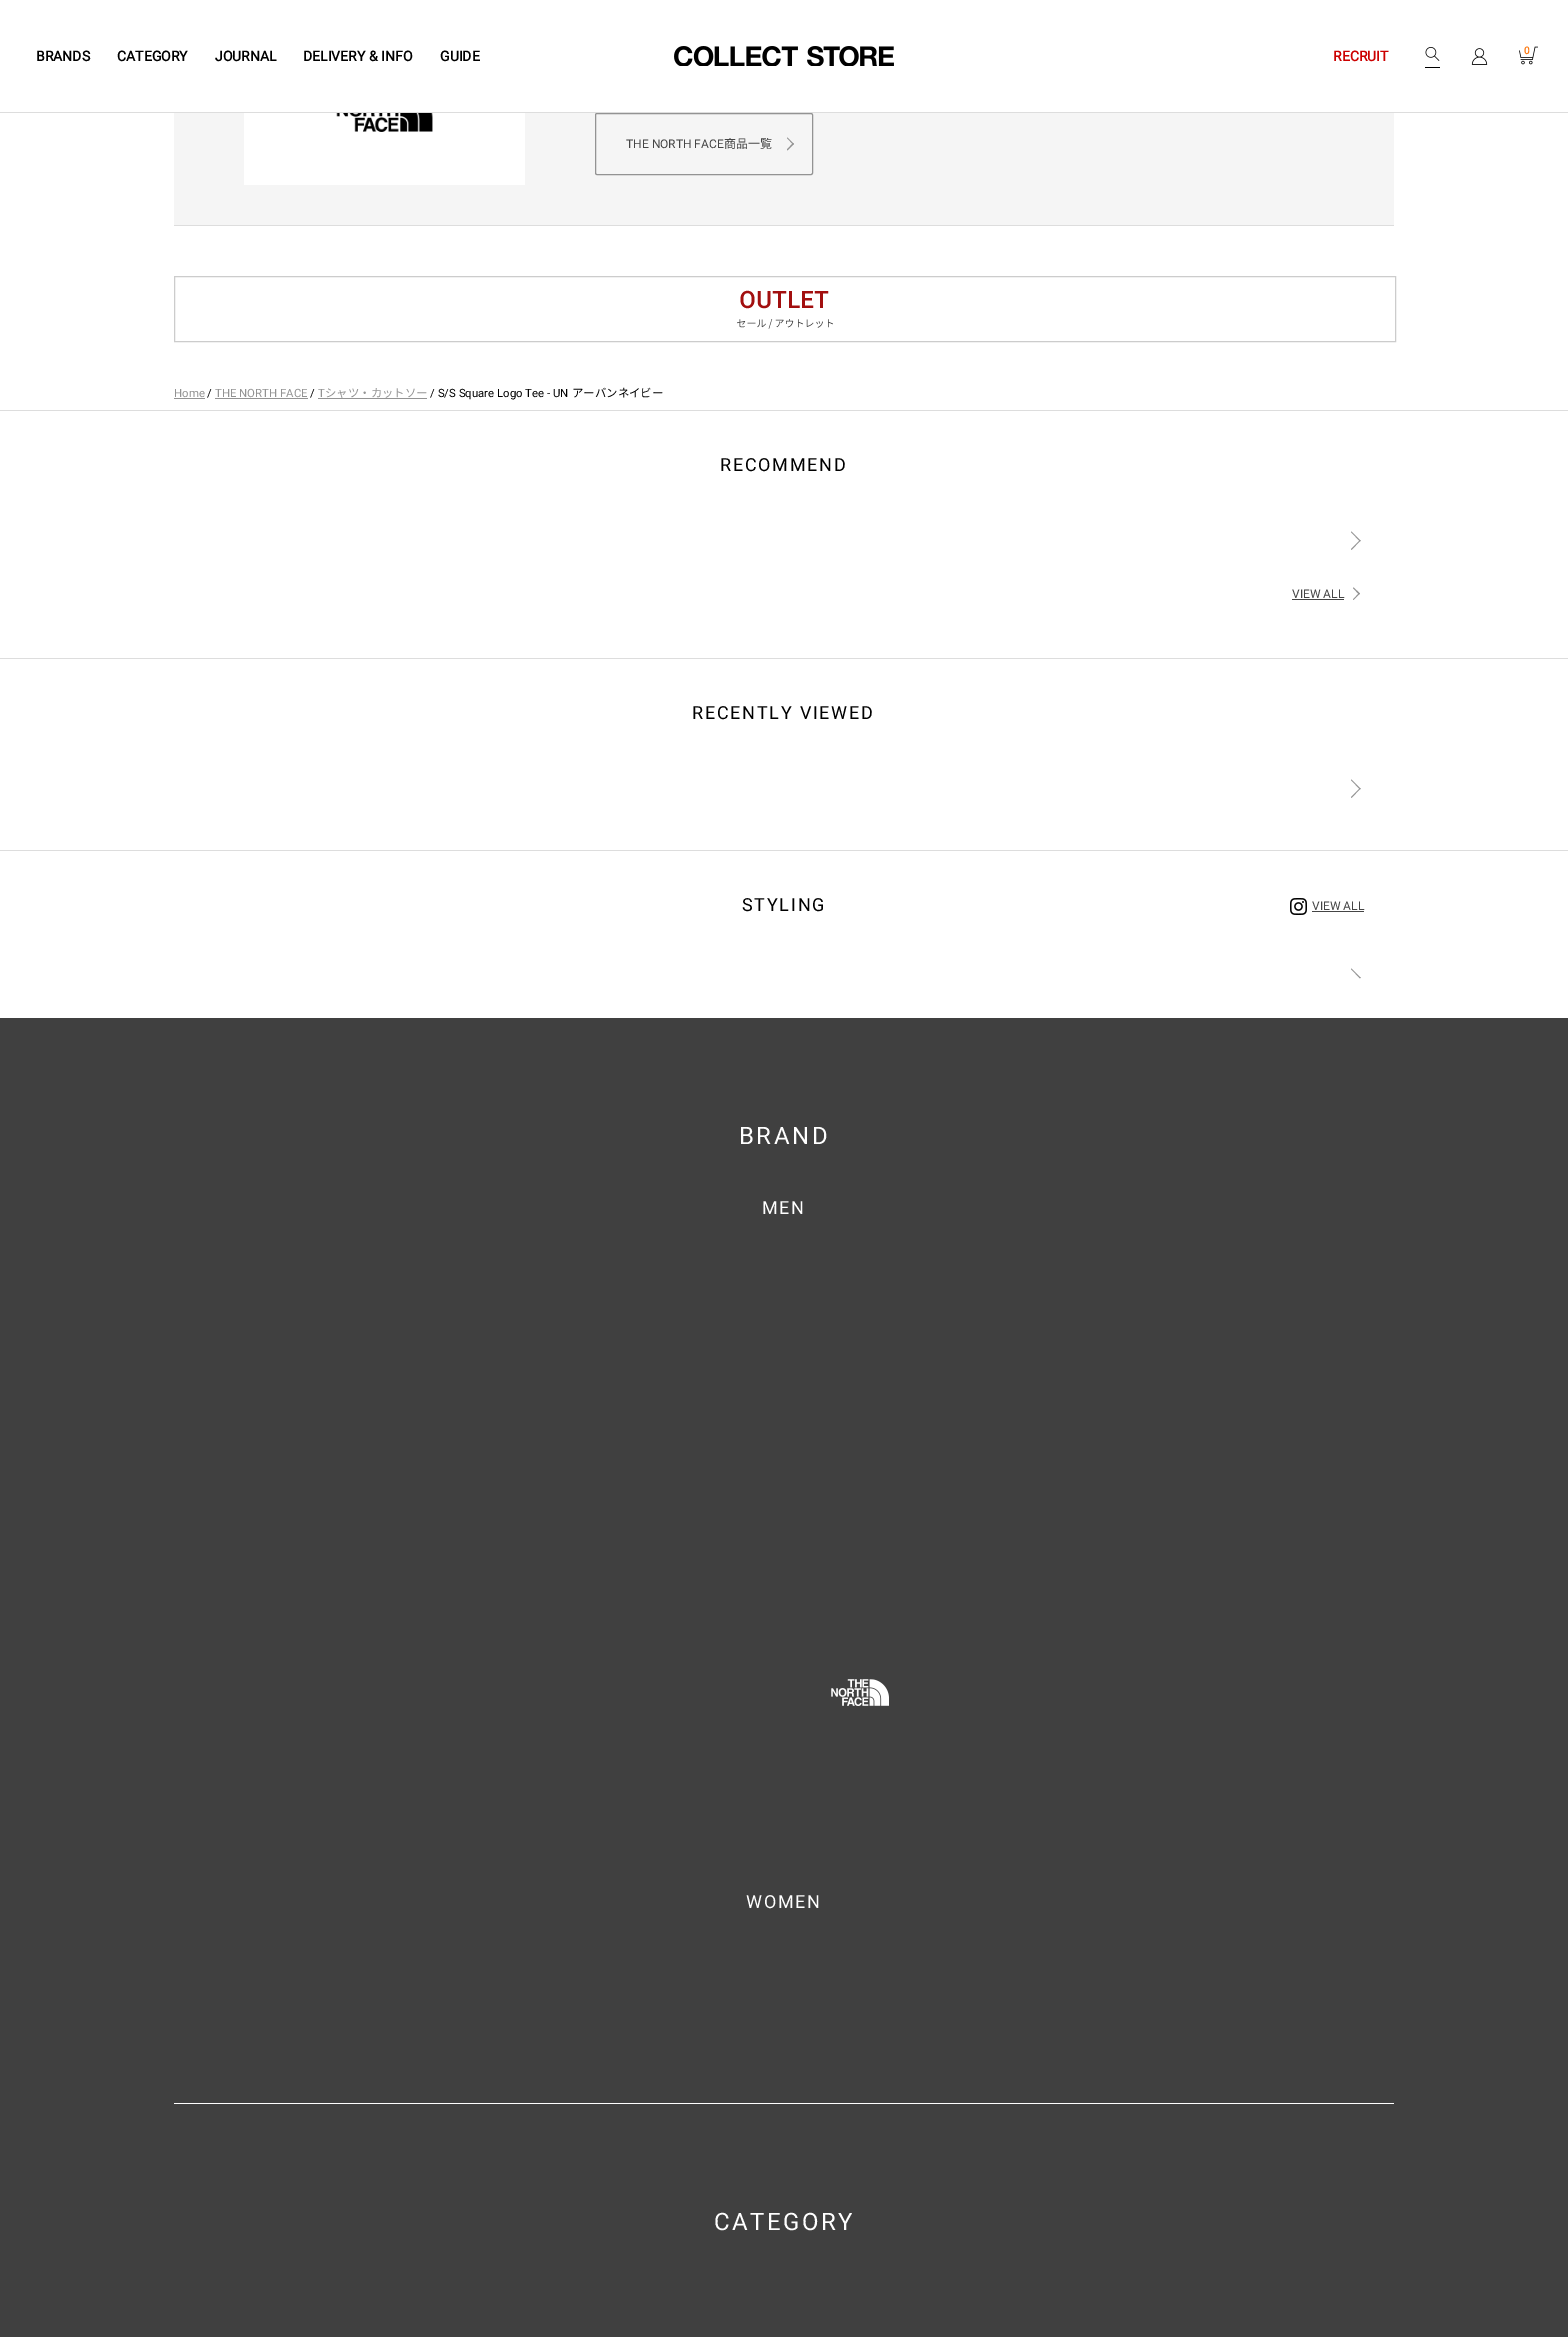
%!PS-Adobe-3.0
%%BoundingBox: 0 0 1568 2337
%%LanguageLevel: 3
%%Pages: 1
%%EndComments
%%BeginProlog
/m { moveto } bind def
/l { lineto } bind def
/h { closepath } bind def
/f { fill } bind def
/S { stroke } bind def
/q { gsave } bind def
/Q { grestore } bind def
/fn { [ exch dup neg 0 0 3 -1 roll 0 0 ] selectfont } def
/tx { moveto show } def
/bx { rectfill } def
/rr { 5 dict begin { /r /h /w /y /x } { exch def } forall
  x r add y moveto x w add y 2 copy h add r arct x w add y h add x 1 index r arct
  x y h add x y r arct x y 2 copy exch w add exch r arct closepath end } def
/im { 5 dict begin { /h /w /y /x /name } { exch def } forall
  gsave x y translate w h scale
  w h 8 [w 0 0 h 0 0] name (r) file false 3 colorimage grestore end } def
%%EndProlog
%%BeginSetup
<< /PageSize [1568 2337] >> setpagedevice
%%EndSetup
%%Page: 1 1
0 2337 translate 1 -1 scale
4 setmiterlimit
1 setgray
0 0 1568 2337 bx
0.867 setgray
0 112 1568 1 bx
/Roboto-Bold 14 fn
0 setgray
(BRANDS) 36 61 tx
(CATEGORY) 117 61 tx
(JOURNAL) 215 61 tx
(DELIVERY & INFO) 303 61 tx
(GUIDE) 440 61 tx
(image0.raw) 674 46 220 20 im
0.8 0 0 setrgbcolor
(RECRUIT) 1333 61 tx
0 setgray
1425 67 15 1 bx
(image1.raw) 1425 47 15 14 im
(image2.raw) 1471 48 17 17 im
(image3.raw) 1519 46 19 19 im
/Roboto-Bold 10 fn
0.992 0.471 0.059 setrgbcolor
1524 54 m -1 0 (0) ashow
0.961 setgray
174 113 1220 112 bx
0.867 setgray
174 225 1220 1 bx
1 setgray
244 113 281 72 bx
(image4.raw) 336 113 97 19 im
0.576 setgray
595.5 113.5 217 61 1.5 rr S
/Roboto-Regular 12 fn
0.271 setgray
(THE NORTH FACE) 626 148 tx
/NotoSansJP-Thin 12 fn
(商品一覧) 724 148 tx
0.576 setgray
787.5 137.5 m 794 144 l 793 144.5 l 787 138 l h f
793 143 m 794 144 l 787.5 150.5 l 787 149.5 l h f
0.8 setgray
174.5 276.5 1221 65 rectstroke
(image5.raw) 737 290 96 39 im
/Roboto-Regular 11.4 fn
0.576 setgray
(Home) 174 397 tx
174 398 31 1 bx
0 setgray
(/) 207 397 tx
0.576 setgray
(THE NORTH FACE) 215 397 tx
215 398 93 1 bx
0 setgray
(/) 310 397 tx
0.576 setgray
(T) 318 397 tx
/NotoSansJP-Thin 11.4 fn
(シャツ・カットソー) 325 397 tx
318 398 109 1 bx
/Roboto-Regular 11.4 fn
0 setgray
(/ S/S Square Logo Tee - UN) 430 397 tx
/NotoSansJP-Thin 11.4 fn
(アーバンネイビー) 572 397 tx
0.867 setgray
0 410 1568 1 bx
/Roboto-Regular 18 fn
0 setgray
720 471 m 1.75 0 (RECOMMEND) ashow
0.576 setgray
1351.5 531.5 m 1360.5 540.5 l 1360 541.5 l 1351 532 l h f
1360 540 m 1360.5 540.5 l 1351.5 550 l 1351 549 l h f
/Roboto-Regular 12 fn
0.271 setgray
(VIEW ALL) 1292 598 tx
1292 599 52 1 bx
0.576 setgray
1353.5 587.5 m 1360 593.5 l 1359 594.5 l 1353 588 l h f
1359 593 m 1360 593.5 l 1353.5 600 l 1353 599.5 l h f
0.867 setgray
0 658 1568 1 bx
/Roboto-Regular 18 fn
0 setgray
692 719 m 1.75 0 (RECENTLY VIEWED) ashow
0.576 setgray
1351.5 779.5 m 1360.5 788.5 l 1360 789.5 l 1351 780 l h f
1360 788 m 1360.5 788.5 l 1351.5 798 l 1351 797 l h f
0.867 setgray
0 850 1568 1 bx
0 setgray
742 911 m 1.75 0 (STYLING) ashow
(image6.raw) 1290 898 17 17 im
/Roboto-Regular 12 fn
0.271 setgray
(VIEW ALL) 1312 910 tx
1312 911 52 1 bx
0.576 setgray
1351.5 968.5 m 1360.5 977.5 l 1360 978.5 l 1351 969 l h f
q
174 891 1220 87 rectclip
1360 977 m 1360.5 977.5 l 1351.5 987 l 1351 986 l h f
Q
0.251 setgray
0 1018 1568 1319 bx
1 setgray
174 2103 1220 1 bx
/Roboto-Regular 24 fn
739 1144 m 2.5 0 (BRAND) ashow
/Roboto-Regular 18 fn
762 1214 m 1.75 0 (MEN) ashow
(image7.raw) 831 1679 58 27 im
746 1908 m 1.75 0 (WOMEN) ashow
/Roboto-Regular 24 fn
714 2230 m 2.5 0 (CATEGORY) ashow
showpage
%%EOF
